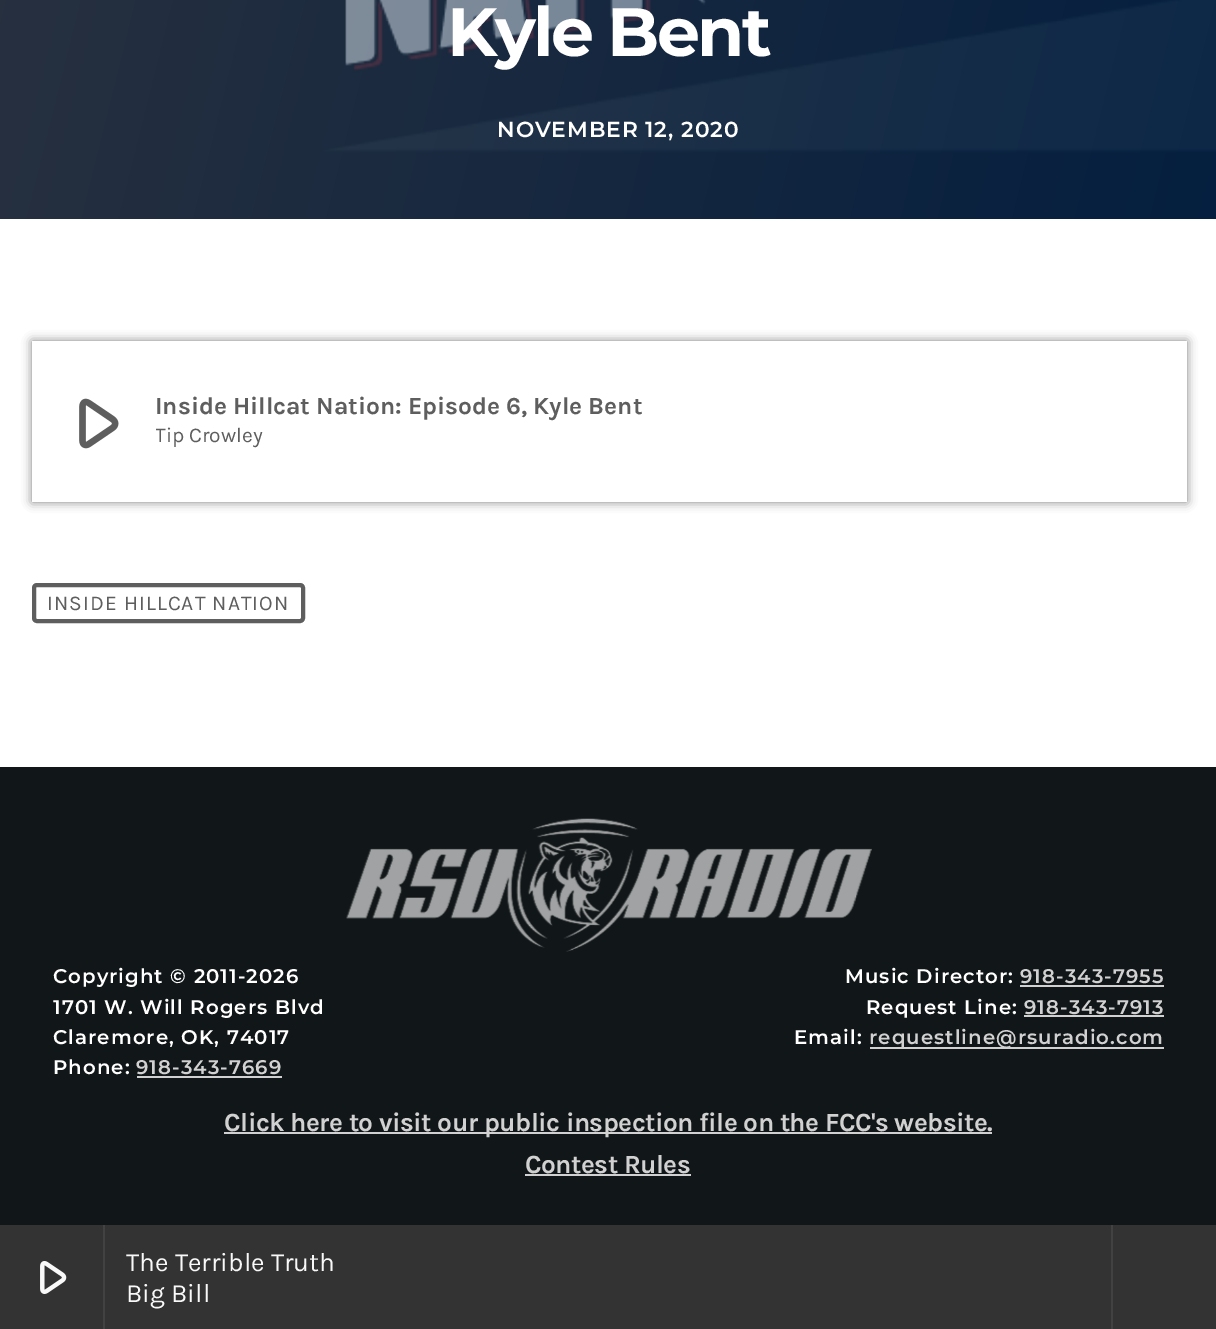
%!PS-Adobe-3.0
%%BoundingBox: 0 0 1216 1329
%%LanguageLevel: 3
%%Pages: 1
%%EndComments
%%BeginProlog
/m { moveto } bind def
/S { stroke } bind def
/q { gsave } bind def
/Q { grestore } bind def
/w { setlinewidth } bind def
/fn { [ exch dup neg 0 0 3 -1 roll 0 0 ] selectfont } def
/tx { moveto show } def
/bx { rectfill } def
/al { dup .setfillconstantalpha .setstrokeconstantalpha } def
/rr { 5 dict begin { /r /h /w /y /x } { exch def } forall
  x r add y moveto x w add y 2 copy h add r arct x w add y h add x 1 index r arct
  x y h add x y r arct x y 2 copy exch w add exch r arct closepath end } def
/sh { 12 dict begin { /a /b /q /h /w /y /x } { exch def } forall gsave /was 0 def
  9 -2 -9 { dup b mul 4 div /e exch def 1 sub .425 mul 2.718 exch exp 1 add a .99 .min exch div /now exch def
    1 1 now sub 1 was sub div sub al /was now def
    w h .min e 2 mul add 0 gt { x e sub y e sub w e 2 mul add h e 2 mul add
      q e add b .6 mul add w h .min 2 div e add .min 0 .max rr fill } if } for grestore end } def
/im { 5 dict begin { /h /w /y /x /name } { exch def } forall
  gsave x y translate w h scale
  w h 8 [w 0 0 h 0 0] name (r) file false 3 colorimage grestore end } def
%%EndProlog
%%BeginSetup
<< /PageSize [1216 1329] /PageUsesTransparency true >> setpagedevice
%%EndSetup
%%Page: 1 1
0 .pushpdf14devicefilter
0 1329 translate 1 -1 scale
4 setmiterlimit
1 setgray
0 0 1216 1329 bx
(image0.raw) 0 0 1216 219 im
/Montserrat-Bold 68.25 fn
447 56 m -2.75 0 (Kyle Bent) ashow
/Montserrat-SemiBold 21.75 fn
497 137 m 0.9 0 (NOVEMBER 12, 2020) ashow
0 setgray
32 341 1155 161 0 5 0.5 sh
1 setgray
32 341 1155 161 bx
(image1.raw) 79 398 40 51 im
/Karla-Bold 24.5 fn
0.369 setgray
(Inside Hillcat Nation: Episode 6, Kyle Bent) 155 414 tx
q
156 424 492 26 rectclip
/Karla-Regular 21 fn
(Tip Crowley) 155 442 tx
Q
4 w
34 585 269 36 3 rr S
/Karla-Regular 21 fn
47 610 m 1.05 0 (INSIDE HILLCAT NATION) ashow
0.067 0.086 0.094 setrgbcolor
0 767 1216 458 bx
(image2.raw) 346 818 526 134 im
/Montserrat-SemiBold 19.75 fn
1 setgray
53 983 m 1.05 0 (Copyright © 2011-2026) ashow
53 1014 m 1.05 0 (1701 W. Will Rogers Blvd) ashow
53 1044 m 1.05 0 (Claremore, OK, 74017) ashow
53 1074 m 1.05 0 (Phone:) ashow
0.82 setgray
136 1074 m 1.05 0 (918-343-7669) ashow
137 1076 145 2 bx
1 setgray
845 983 m 1.05 0 (Music Director:) ashow
0.82 setgray
1020 983 m 1.05 0 (918-343-7955) ashow
1020 985 144 2 bx
1 setgray
866 1014 m 1.05 0 (Request Line:) ashow
0.82 setgray
1024 1014 m 1.05 0 (918-343-7913) ashow
1024 1015 140 2 bx
1 setgray
794 1044 m 1.05 0 (Email:) ashow
0.82 setgray
870 1047 294 2 bx
869 1044 m 1.05 0 (requestline@rsuradio.com) ashow
224 1132 768 2 bx
/Karla-Bold 26.25 fn
224 1131 m -0.53 0 (Click here to visit our public inspection file on the FCC's website.) ashow
525 1173 m -0.53 0 (Contest Rules) ashow
525 1174 166 2 bx
0.2 setgray
0 1225 1216 104 bx
0.259 setgray
103 1225 2 104 bx
(image3.raw) 40 1261 27 33 im
/Karla-Regular 26.25 fn
0.976 setgray
(The Terrible Truth) 126 1271 tx
(Big Bill) 126 1302 tx
0.259 setgray
1111 1225 2 104 bx
.poppdf14devicefilter showpage
%%EOF
